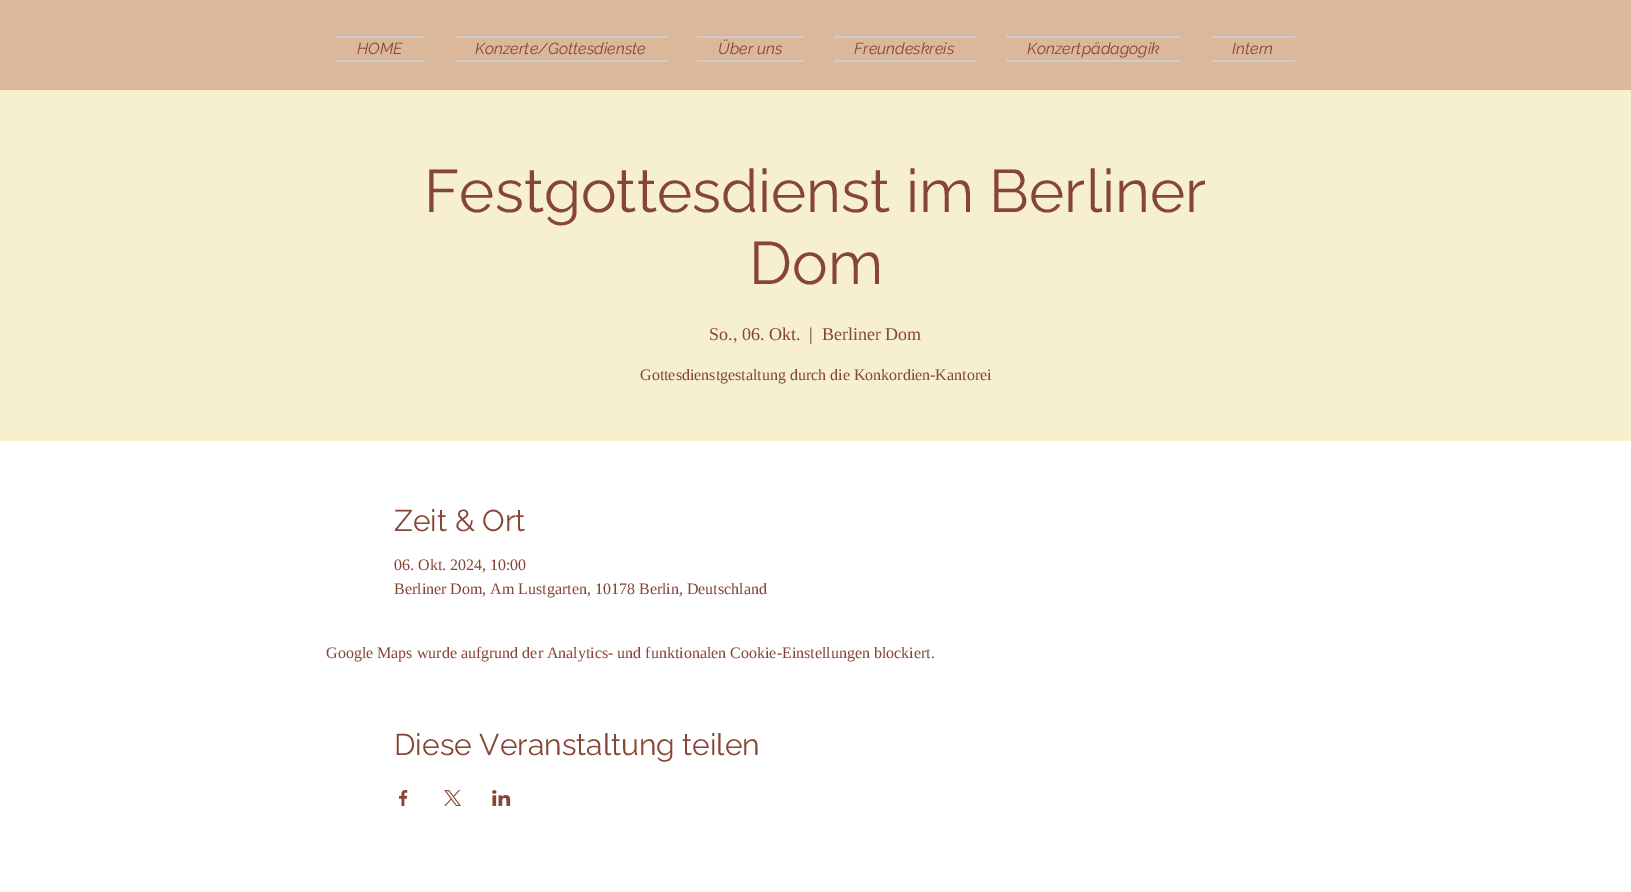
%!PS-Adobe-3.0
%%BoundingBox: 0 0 1631 892
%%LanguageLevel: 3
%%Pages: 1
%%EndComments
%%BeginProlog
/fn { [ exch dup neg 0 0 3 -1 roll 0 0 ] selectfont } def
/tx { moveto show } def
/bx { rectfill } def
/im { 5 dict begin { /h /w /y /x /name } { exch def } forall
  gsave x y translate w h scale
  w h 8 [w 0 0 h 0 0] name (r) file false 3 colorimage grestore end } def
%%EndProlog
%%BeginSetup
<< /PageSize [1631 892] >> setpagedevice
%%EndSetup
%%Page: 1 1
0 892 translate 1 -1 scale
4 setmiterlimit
1 setgray
0 0 1631 892 bx
0.859 0.722 0.604 setrgbcolor
0 0 1631 90 bx
0.8 setgray
336 36 89 2 bx
336 60 89 2 bx
/Raleway-Italic 16 fn
0.525 0.271 0.208 setrgbcolor
(HOME) 357 54 tx
0.8 setgray
455 36 212 2 bx
455 60 212 2 bx
0.525 0.271 0.208 setrgbcolor
(Konzerte/Gottesdienste) 475 54 tx
0.8 setgray
697 36 107 2 bx
697 60 107 2 bx
0.525 0.271 0.208 setrgbcolor
(Über uns) 718 54 tx
0.8 setgray
834 36 142 2 bx
834 60 142 2 bx
0.525 0.271 0.208 setrgbcolor
(Freundeskreis) 854 54 tx
0.8 setgray
1006 36 175 2 bx
1006 60 175 2 bx
0.525 0.271 0.208 setrgbcolor
(Konzertpädagogik) 1027 54 tx
0.8 setgray
1211 36 84 2 bx
1211 60 84 2 bx
0.525 0.271 0.208 setrgbcolor
(Intern) 1232 54 tx
0.965 0.941 0.812 setrgbcolor
0 90 1631 351 bx
/Raleway-Regular 60 fn
0.525 0.271 0.208 setrgbcolor
(Festgottesdienst im Berliner) 424 212 tx
(Dom) 749 284 tx
/LiberationSerif-Regular 18 fn
(So., 06. Okt.) 709 340 tx
(|) 809 340 tx
(Berliner Dom) 822 340 tx
/LiberationSerif-Regular 16 fn
(Gottesdienstgestaltung durch die Konkordien-Kantorei) 640 380 tx
/Raleway-Regular 30 fn
(Zeit & Ort) 394 531 tx
/LiberationSerif-Regular 16 fn
(06. Okt. 2024, 10:00) 394 570 tx
(Berliner Dom, Am Lustgarten, 10178 Berlin, Deutschland) 394 594 tx
(Google Maps wurde aufgrund der Analytics- und funktionalen Cookie-Einstellungen blockiert.) 326 658 tx
/Raleway-Regular 30 fn
(Diese Veranstaltung teilen) 394 755 tx
(image0.raw) 399 790 9 16 im
(image1.raw) 444 790 17 16 im
(image2.raw) 492 790 19 16 im
showpage
%%EOF
